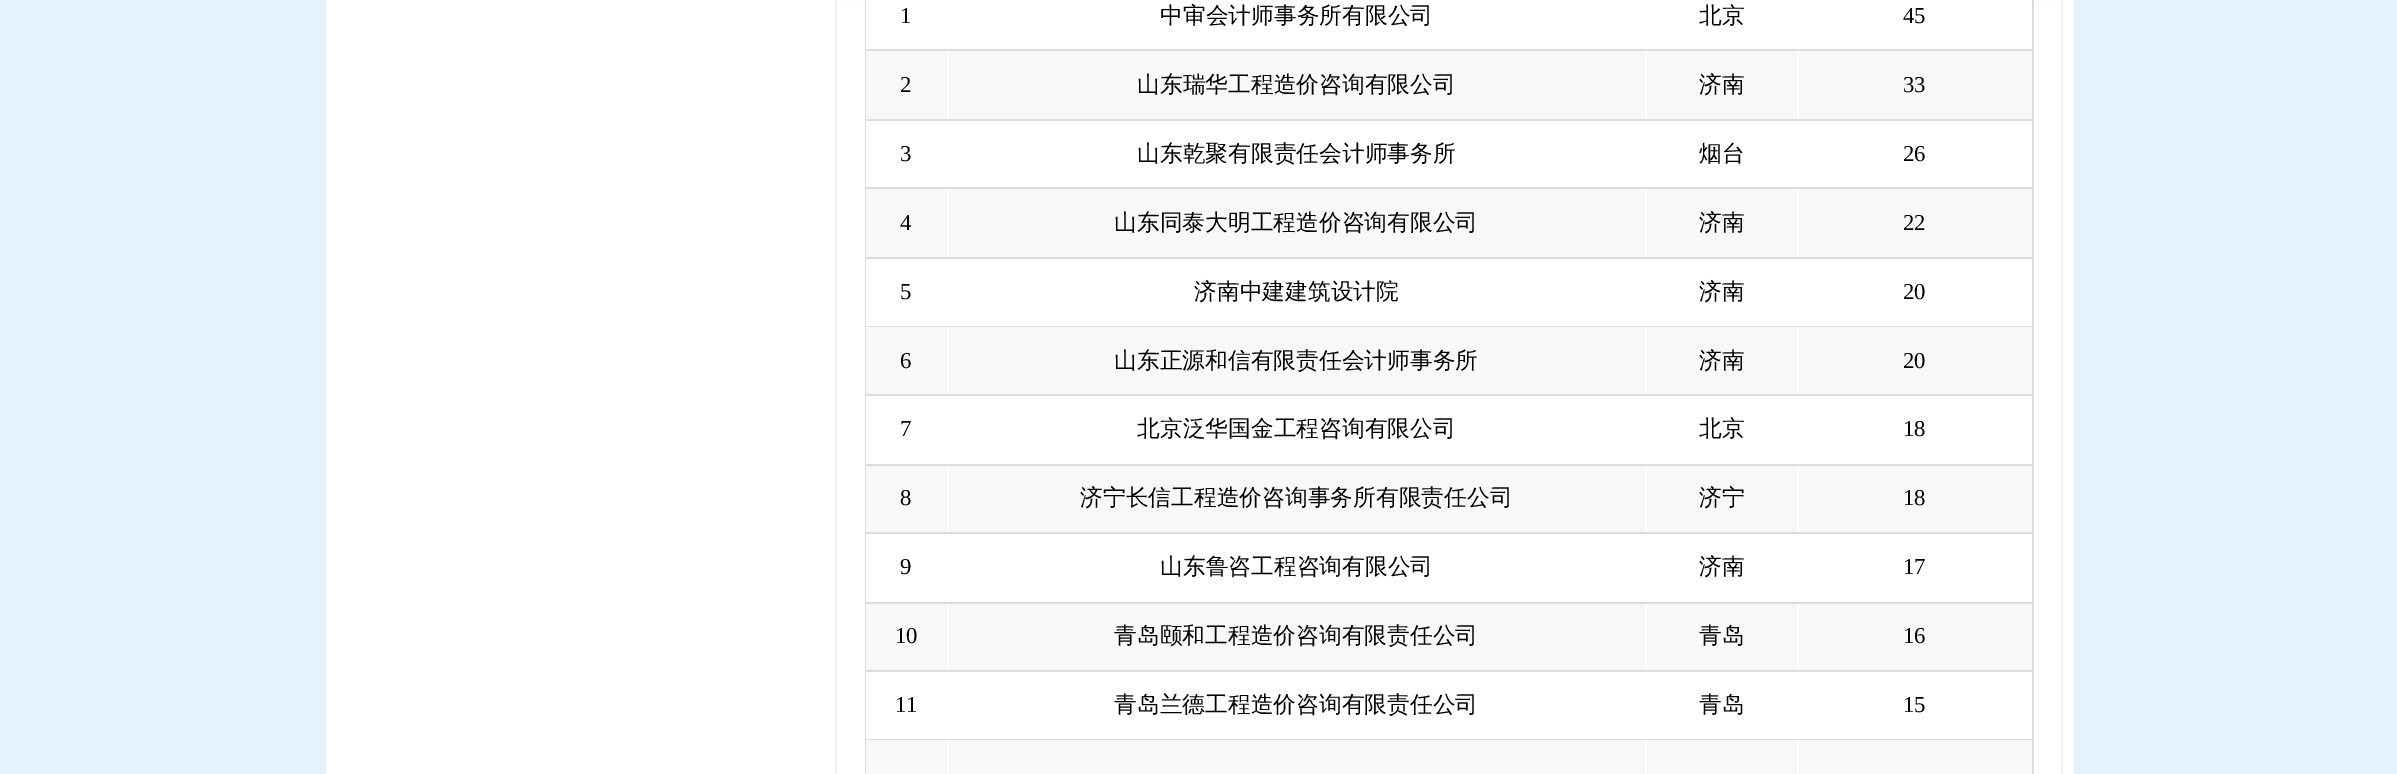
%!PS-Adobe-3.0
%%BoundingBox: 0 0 2397 774
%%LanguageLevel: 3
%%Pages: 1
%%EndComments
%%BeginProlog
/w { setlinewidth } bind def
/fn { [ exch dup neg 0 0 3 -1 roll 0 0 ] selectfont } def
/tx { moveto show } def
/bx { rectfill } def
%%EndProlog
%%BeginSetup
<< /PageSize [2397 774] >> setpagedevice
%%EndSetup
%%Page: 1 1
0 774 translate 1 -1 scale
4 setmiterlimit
0.902 0.953 0.996 setrgbcolor
0 0 2397 774 bx
1 setgray
326 0 1748 774 bx
0.949 setgray
2 w
836 -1 1226 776 rectstroke
0.867 setgray
865 0 1169 774 bx
1 setgray
866 0 1166 49 bx
/LiberationSerif-Regular 22.75 fn
0 setgray
(1) 900 23 tx
/WenQuanYiZenHei-Medium 22.75 fn
(中审会计师事务所有限公司) 1160 23 tx
(北京) 1699 23 tx
/LiberationSerif-Regular 22.75 fn
(45) 1903 23 tx
1 setgray
947 51 852 68 bx
0.973 setgray
866 51 81 68 bx
0 setgray
(2) 900 92 tx
0.973 setgray
949 51 696 68 bx
/WenQuanYiZenHei-Medium 22.75 fn
0 setgray
(山东瑞华工程造价咨询有限公司) 1137 92 tx
0.973 setgray
1647 51 150 68 bx
0 setgray
(济南) 1699 92 tx
0.973 setgray
1799 51 233 68 bx
/LiberationSerif-Regular 22.75 fn
0 setgray
(33) 1903 92 tx
1 setgray
866 121 1166 66 bx
0 setgray
(3) 900 161 tx
/WenQuanYiZenHei-Medium 22.75 fn
(山东乾聚有限责任会计师事务所) 1137 161 tx
(烟台) 1699 161 tx
/LiberationSerif-Regular 22.75 fn
(26) 1903 161 tx
1 setgray
947 189 852 68 bx
0.973 setgray
866 189 81 68 bx
0 setgray
(4) 900 230 tx
0.973 setgray
949 189 696 68 bx
/WenQuanYiZenHei-Medium 22.75 fn
0 setgray
(山东同泰大明工程造价咨询有限公司) 1114 230 tx
0.973 setgray
1647 189 150 68 bx
0 setgray
(济南) 1699 230 tx
0.973 setgray
1799 189 233 68 bx
/LiberationSerif-Regular 22.75 fn
0 setgray
(22) 1903 230 tx
1 setgray
866 259 1166 67 bx
0 setgray
(5) 900 299 tx
/WenQuanYiZenHei-Medium 22.75 fn
(济南中建建筑设计院) 1194 299 tx
(济南) 1699 299 tx
/LiberationSerif-Regular 22.75 fn
(20) 1903 299 tx
1 setgray
947 327 852 67 bx
0.973 setgray
866 327 81 67 bx
0 setgray
(6) 900 368 tx
0.973 setgray
949 327 696 67 bx
/WenQuanYiZenHei-Medium 22.75 fn
0 setgray
(山东正源和信有限责任会计师事务所) 1114 368 tx
0.973 setgray
1647 327 150 67 bx
0 setgray
(济南) 1699 368 tx
0.973 setgray
1799 327 233 67 bx
/LiberationSerif-Regular 22.75 fn
0 setgray
(20) 1903 368 tx
1 setgray
866 396 1166 68 bx
0 setgray
(7) 900 436 tx
/WenQuanYiZenHei-Medium 22.75 fn
(北京泛华国金工程咨询有限公司) 1137 436 tx
(北京) 1699 436 tx
/LiberationSerif-Regular 22.75 fn
(18) 1903 436 tx
1 setgray
947 466 852 66 bx
0.973 setgray
866 466 81 66 bx
0 setgray
(8) 900 505 tx
0.973 setgray
949 466 696 66 bx
/WenQuanYiZenHei-Medium 22.75 fn
0 setgray
(济宁长信工程造价咨询事务所有限责任公司) 1080 505 tx
0.973 setgray
1647 466 150 66 bx
0 setgray
(济宁) 1699 505 tx
0.973 setgray
1799 466 233 66 bx
/LiberationSerif-Regular 22.75 fn
0 setgray
(18) 1903 505 tx
1 setgray
866 534 1166 68 bx
0 setgray
(9) 900 574 tx
/WenQuanYiZenHei-Medium 22.75 fn
(山东鲁咨工程咨询有限公司) 1160 574 tx
(济南) 1699 574 tx
/LiberationSerif-Regular 22.75 fn
(17) 1903 574 tx
1 setgray
947 604 852 66 bx
0.973 setgray
866 604 81 66 bx
0 setgray
(10) 895 643 tx
0.973 setgray
949 604 696 66 bx
/WenQuanYiZenHei-Medium 22.75 fn
0 setgray
(青岛颐和工程造价咨询有限责任公司) 1114 643 tx
0.973 setgray
1647 604 150 66 bx
0 setgray
(青岛) 1699 643 tx
0.973 setgray
1799 604 233 66 bx
/LiberationSerif-Regular 22.75 fn
0 setgray
(16) 1903 643 tx
1 setgray
866 672 1166 67 bx
0 setgray
(11) 895 712 tx
/WenQuanYiZenHei-Medium 22.75 fn
(青岛兰德工程造价咨询有限责任公司) 1114 712 tx
(青岛) 1699 712 tx
/LiberationSerif-Regular 22.75 fn
(15) 1903 712 tx
1 setgray
947 740 852 34 bx
0.973 setgray
866 740 81 34 bx
949 740 696 34 bx
1647 740 150 34 bx
1799 740 233 34 bx
showpage
%%EOF
